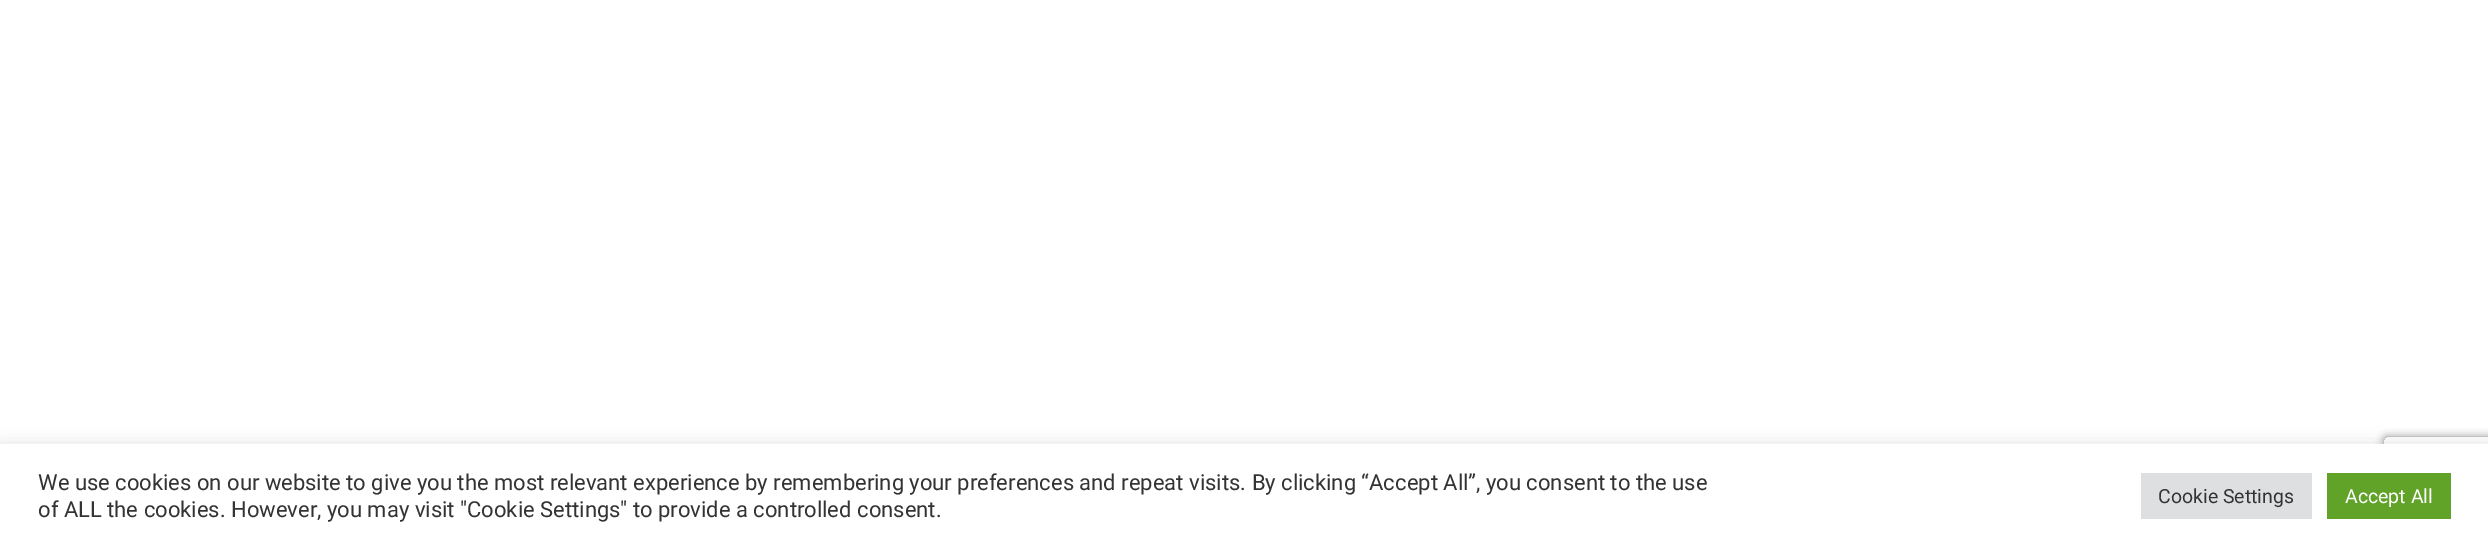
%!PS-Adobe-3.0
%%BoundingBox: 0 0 2488 547
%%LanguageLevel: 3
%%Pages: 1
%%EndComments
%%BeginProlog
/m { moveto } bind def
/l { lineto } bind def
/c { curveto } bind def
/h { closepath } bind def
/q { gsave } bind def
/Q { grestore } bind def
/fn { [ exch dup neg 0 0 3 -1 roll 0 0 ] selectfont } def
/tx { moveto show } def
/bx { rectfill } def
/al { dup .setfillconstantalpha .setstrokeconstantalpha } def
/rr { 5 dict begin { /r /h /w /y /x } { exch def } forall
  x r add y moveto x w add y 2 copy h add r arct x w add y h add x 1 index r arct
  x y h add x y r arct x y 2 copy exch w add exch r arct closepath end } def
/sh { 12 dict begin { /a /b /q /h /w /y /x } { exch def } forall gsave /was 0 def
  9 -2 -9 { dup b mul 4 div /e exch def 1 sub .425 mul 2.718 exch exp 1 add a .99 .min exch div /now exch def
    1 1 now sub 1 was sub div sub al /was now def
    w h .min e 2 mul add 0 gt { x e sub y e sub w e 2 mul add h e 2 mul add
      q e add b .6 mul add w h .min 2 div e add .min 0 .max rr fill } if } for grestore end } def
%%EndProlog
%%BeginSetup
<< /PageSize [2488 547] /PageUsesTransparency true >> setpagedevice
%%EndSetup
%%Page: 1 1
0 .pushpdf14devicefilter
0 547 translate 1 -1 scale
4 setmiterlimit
1 setgray
0 0 2488 547 bx
q
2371 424 m 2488 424 l 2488 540 l 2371 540 l h 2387 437 m 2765 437 l 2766.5 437 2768 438.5 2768 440 c 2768 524 l 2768 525.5 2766.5 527 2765 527 c 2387 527 l 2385.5 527 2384 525.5 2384 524 c 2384 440 l 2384 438.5 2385.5 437 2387 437 c h eoclip newpath
0.502 setgray
2384 437 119 90 3 4 1 sh
Q
0.675 0.671 0.671 setrgbcolor
0 443 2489 103 0 7.5 0.3 sh
1 setgray
0 444 2488 103 bx
/Roboto-Regular 22 fn
0.2 setgray
(We use cookies on our website to give you the most relevant experience by remembering your preferences and repeat visits. By clicking “Accept All”, you consent to the use) 38 490 tx
(of ALL the cookies. However, you may visit "Cookie Settings" to provide a controlled consent.) 38 517 tx
0.871 0.875 0.878 setrgbcolor
2141 473 171 46 bx
/Roboto-Regular 19.5 fn
0.2 setgray
(Cookie Settings) 2158 503 tx
0.38 0.635 0.161 setrgbcolor
2327 473 124 46 bx
1 setgray
(Accept All) 2345 503 tx
.poppdf14devicefilter showpage
%%EOF
